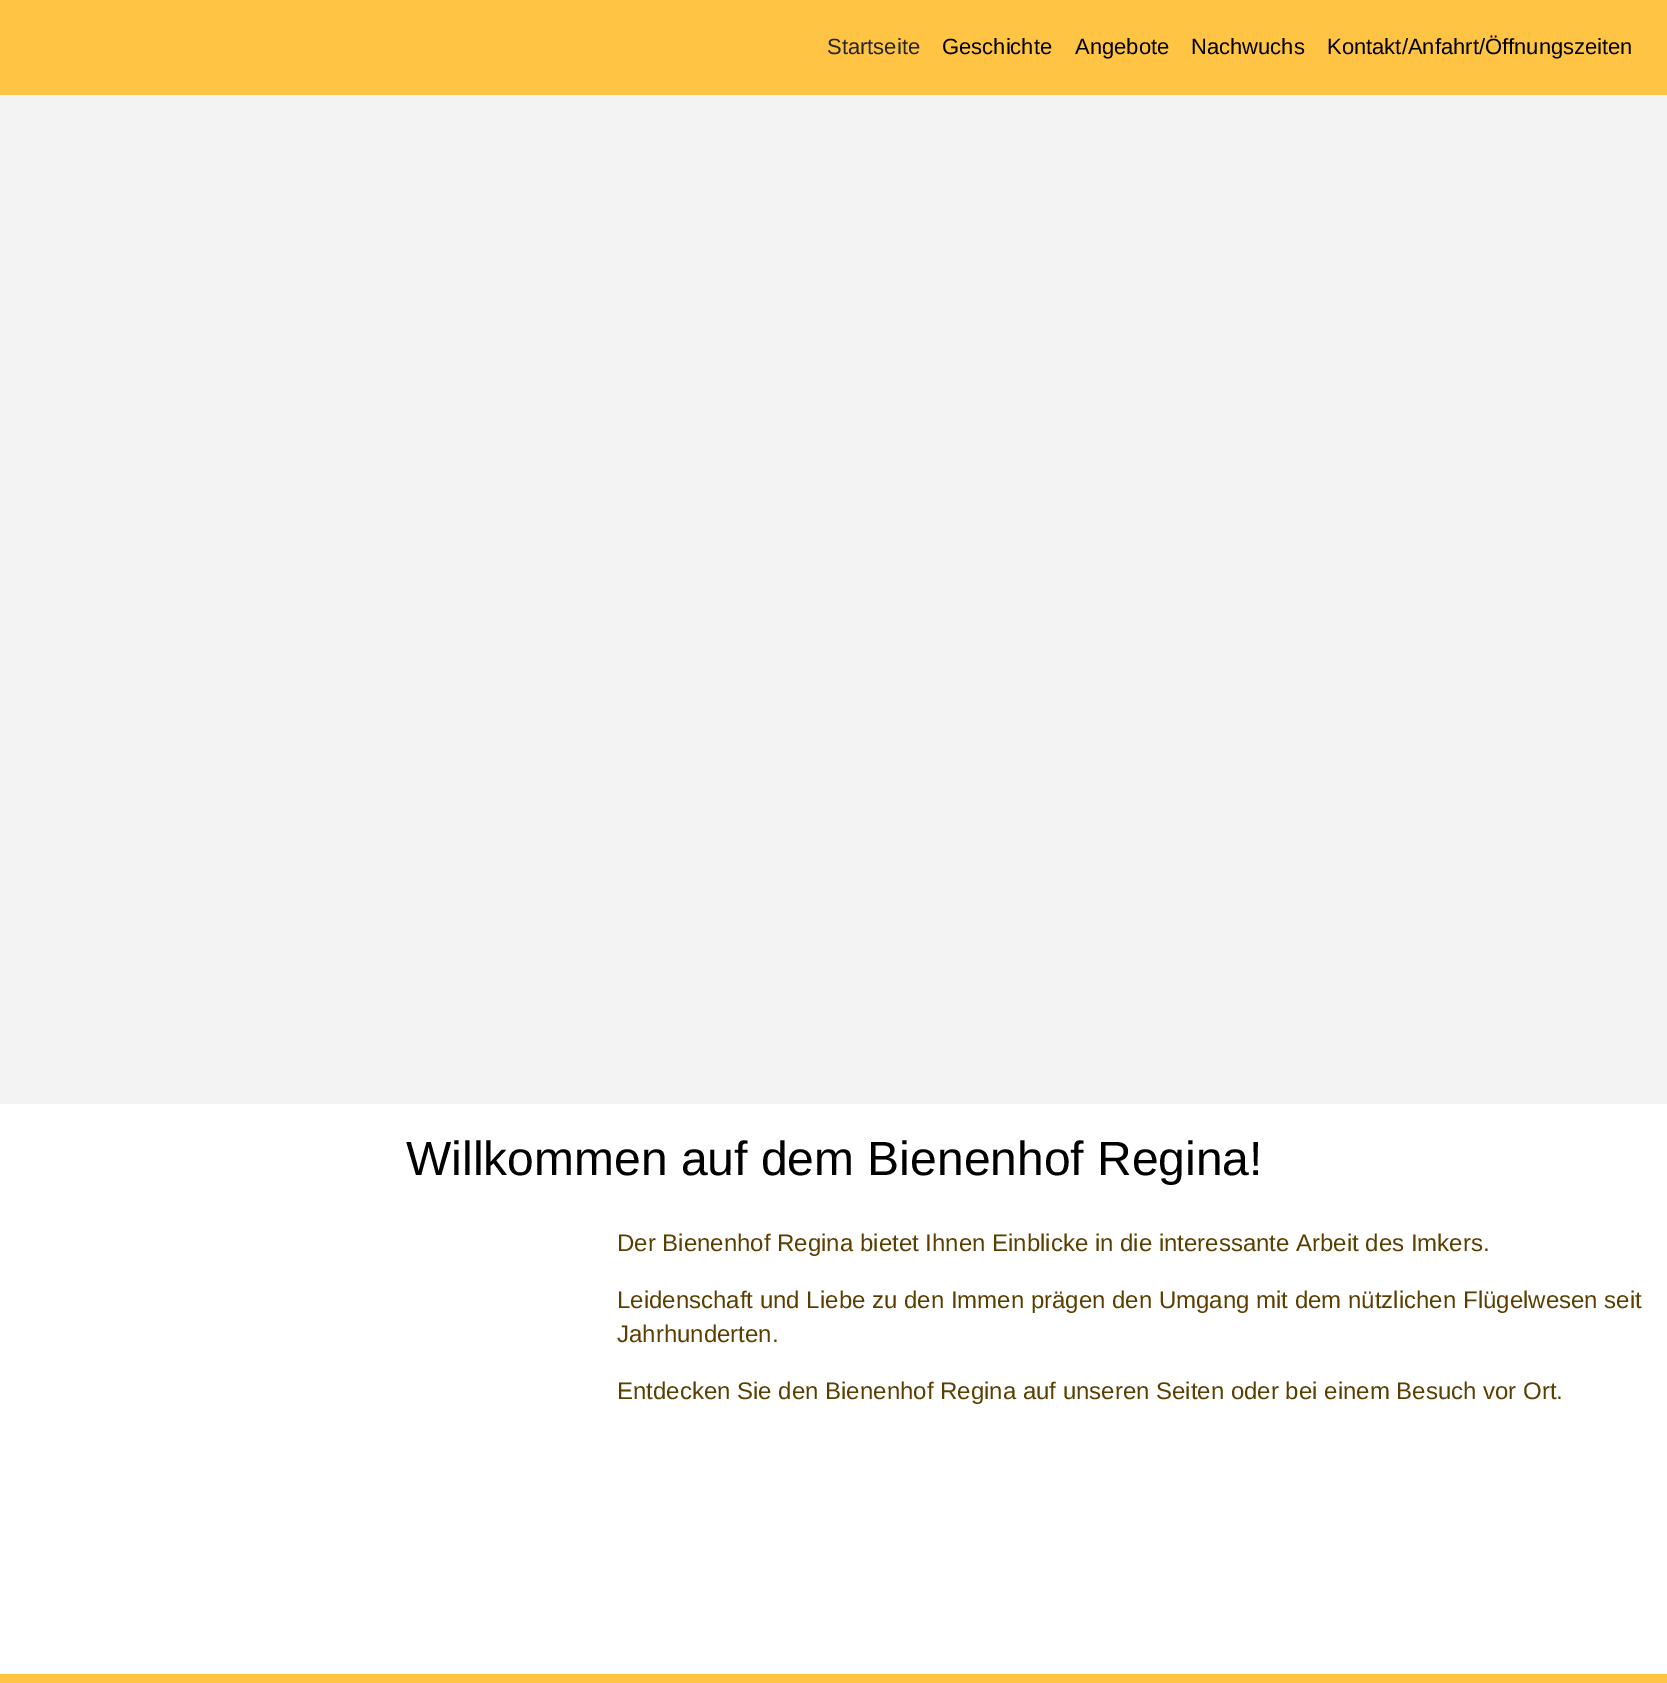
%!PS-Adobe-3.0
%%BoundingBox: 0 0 1667 1683
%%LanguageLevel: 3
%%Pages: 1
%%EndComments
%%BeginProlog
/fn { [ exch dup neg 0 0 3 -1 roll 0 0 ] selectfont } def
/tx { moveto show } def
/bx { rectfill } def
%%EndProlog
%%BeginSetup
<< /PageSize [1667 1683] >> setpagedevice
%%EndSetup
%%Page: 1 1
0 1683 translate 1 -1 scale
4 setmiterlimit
1 setgray
0 0 1667 1683 bx
1 0.769 0.267 setrgbcolor
0 0 1667 95 bx
/LiberationSans-Regular 22 fn
0.149 setgray
(Startseite) 827 54 tx
0 setgray
(Geschichte) 942 54 tx
(Angebote) 1075 54 tx
(Nachwuchs) 1191 54 tx
(Kontakt/Anfahrt/Öffnungszeiten) 1327 54 tx
0.953 setgray
0 95 1667 1009 bx
/LiberationSans-Regular 48 fn
0 setgray
(Willkommen auf dem Bienenhof Regina!) 406 1175 tx
/LiberationSans-Regular 24 fn
0.361 0.247 0 setrgbcolor
(Der Bienenhof Regina bietet Ihnen Einblicke in die interessante Arbeit des Imkers.) 617 1251 tx
(Leidenschaft und Liebe zu den Immen prägen den Umgang mit dem nützlichen Flügelwesen seit) 617 1308 tx
(Jahrhunderten.) 617 1342 tx
(Entdecken Sie den Bienenhof Regina auf unseren Seiten oder bei einem Besuch vor Ort.) 617 1399 tx
1 0.769 0.267 setrgbcolor
0 1674 1667 9 bx
showpage
%%EOF
